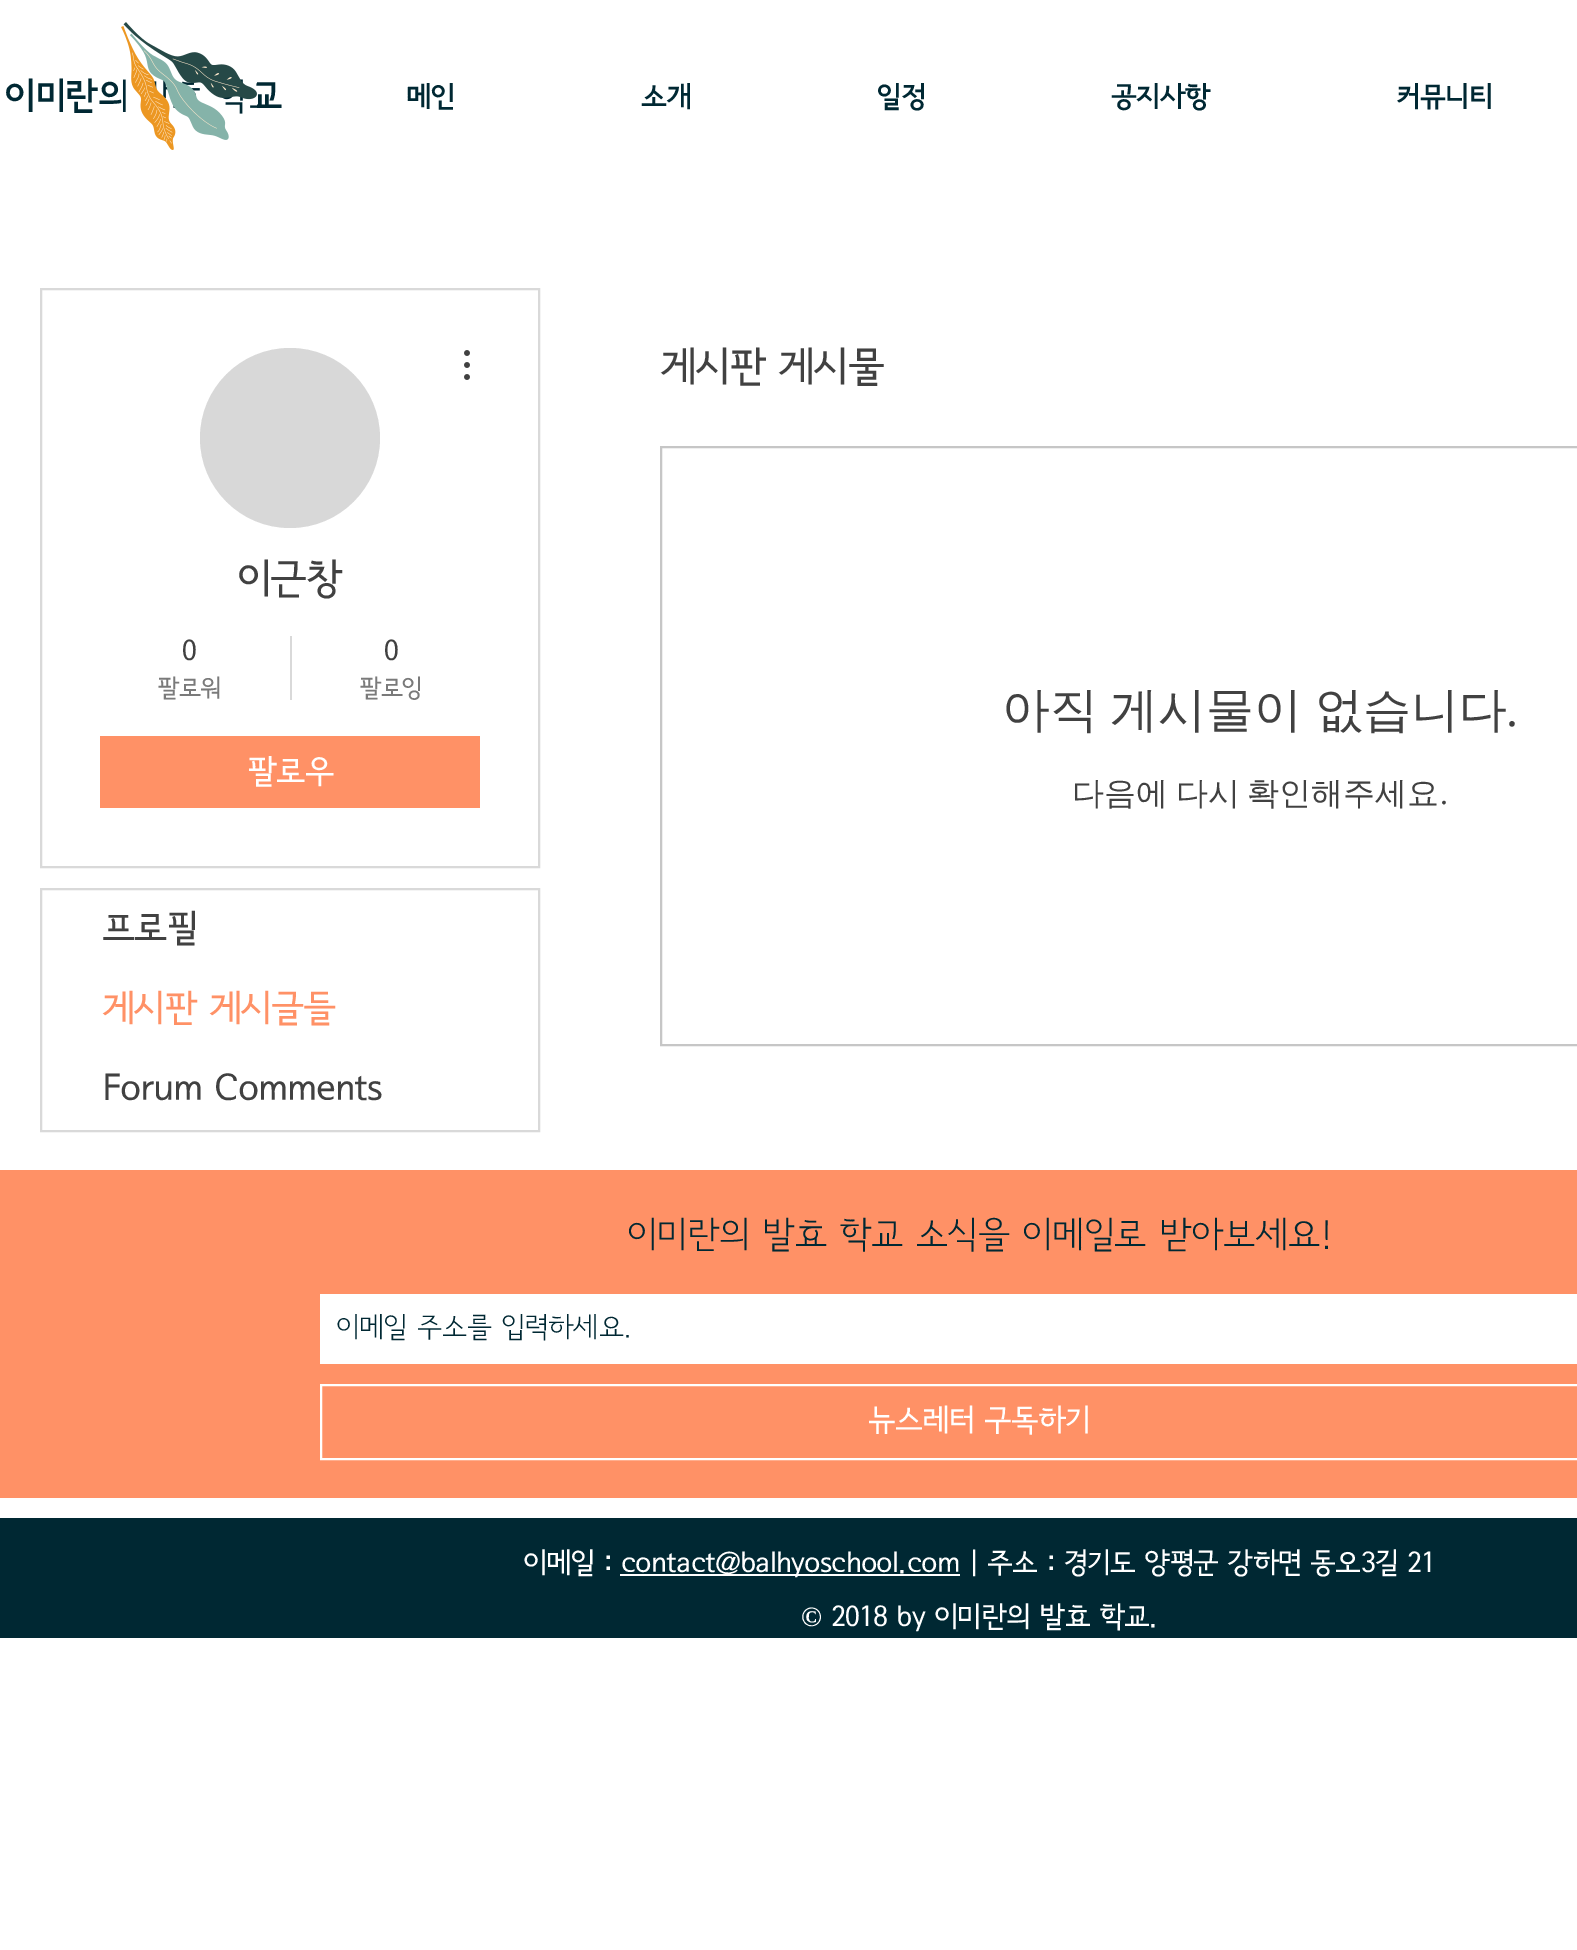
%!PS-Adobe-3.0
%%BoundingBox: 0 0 1577 1950
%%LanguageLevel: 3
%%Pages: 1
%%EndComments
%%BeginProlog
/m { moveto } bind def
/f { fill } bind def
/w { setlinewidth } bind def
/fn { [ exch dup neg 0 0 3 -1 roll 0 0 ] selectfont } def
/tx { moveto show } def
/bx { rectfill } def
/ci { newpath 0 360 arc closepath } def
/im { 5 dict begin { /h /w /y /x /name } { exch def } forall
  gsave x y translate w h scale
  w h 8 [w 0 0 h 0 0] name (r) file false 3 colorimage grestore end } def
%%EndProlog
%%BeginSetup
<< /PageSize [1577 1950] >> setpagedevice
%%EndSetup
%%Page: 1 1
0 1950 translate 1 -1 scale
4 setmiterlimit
1 setgray
0 0 1577 1950 bx
/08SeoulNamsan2-Bold 36 fn
0 0.157 0.2 setrgbcolor
(이미란의) 4 108 tx
(교) 249 108 tx
(image0.raw) 121 22 136 128 im
/08SeoulNamsan2-Bold 28 fn
(메인) 406 106 tx
(소개) 641 106 tx
(일정) 877 106 tx
(공지사항) 1111 106 tx
(커뮤니티) 1396 106 tx
0.851 setgray
2 w
41 289 498 578 rectstroke
0.847 setgray
290 438 90 ci f
(image1.raw) 464 350 6 30 im
/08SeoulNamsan-Bold 40 fn
0.255 setgray
(이근창) 237 592 tx
/08SeoulNamsan-Bold 28 fn
(0) 182 660 tx
/08SeoulNamsan-Bold 24 fn
0.478 setgray
(팔로워) 157 696 tx
0.851 setgray
290 636 2 64 bx
/08SeoulNamsan-Bold 28 fn
0.255 setgray
(0) 384 660 tx
/08SeoulNamsan-Bold 24 fn
0.478 setgray
(팔로잉) 359 696 tx
1 0.569 0.4 setrgbcolor
100 736 380 72 bx
/08SeoulNamsan-Bold 32 fn
1 setgray
(팔로우) 247 782 tx
0.851 setgray
41 889 498 242 rectstroke
/08SeoulNamsan-Bold 36 fn
0.255 setgray
(프로필) 102 940 tx
1 0.569 0.4 setrgbcolor
(게시판 게시글들) 102 1020 tx
0.255 setgray
(Forum Comments) 102 1100 tx
/08SeoulNamsan-Bold 40 fn
(게시판 게시물) 660 380 tx
0.776 setgray
661 447 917 598 rectstroke
/WenQuanYiZenHei-Medium 48 fn
0.255 setgray
1002 726 m -2 0 32 (아직 게시물이 없습니다) widthshow
/LiberationSerif-Regular 48 fn
(.) 1506 726 tx
/WenQuanYiZenHei-Medium 32 fn
1072 804 m -2 0 32 (다음에 다시 확인해주세요) widthshow
/LiberationSerif-Regular 32 fn
(.) 1440 804 tx
1 0.569 0.4 setrgbcolor
0 1170 1577 328 bx
/08SeoulNamsan-Regular 36 fn
0 0.157 0.2 setrgbcolor
(이미란의 발효 학교 소식을 이메일로 받아보세요!) 627 1246 tx
1 setgray
320 1294 1257 70 bx
/08SeoulNamsan-Regular 28 fn
0 0.157 0.2 setrgbcolor
(이메일 주소를 입력하세요.) 336 1336 tx
1 setgray
321 1385 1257 74 rectstroke
/08SeoulNamsan-Bold 30 fn
(뉴스레터 구독하기) 868 1430 tx
0 0.157 0.2 setrgbcolor
0 1518 1577 120 bx
/08SeoulNamsan-Bold 28 fn
1 setgray
(이메일 :) 523 1572 tx
620 1574 340 2 bx
(contact@balhyoschool.com | 주소 : 경기도 양평군 강하면 동오3길 21) 621 1572 tx
/LiberationSerif-Bold 28 fn
(©) 801 1626 tx
/08SeoulNamsan-Bold 28 fn
(2018 by 이미란의 발효 학교.) 831 1626 tx
showpage
%%EOF
